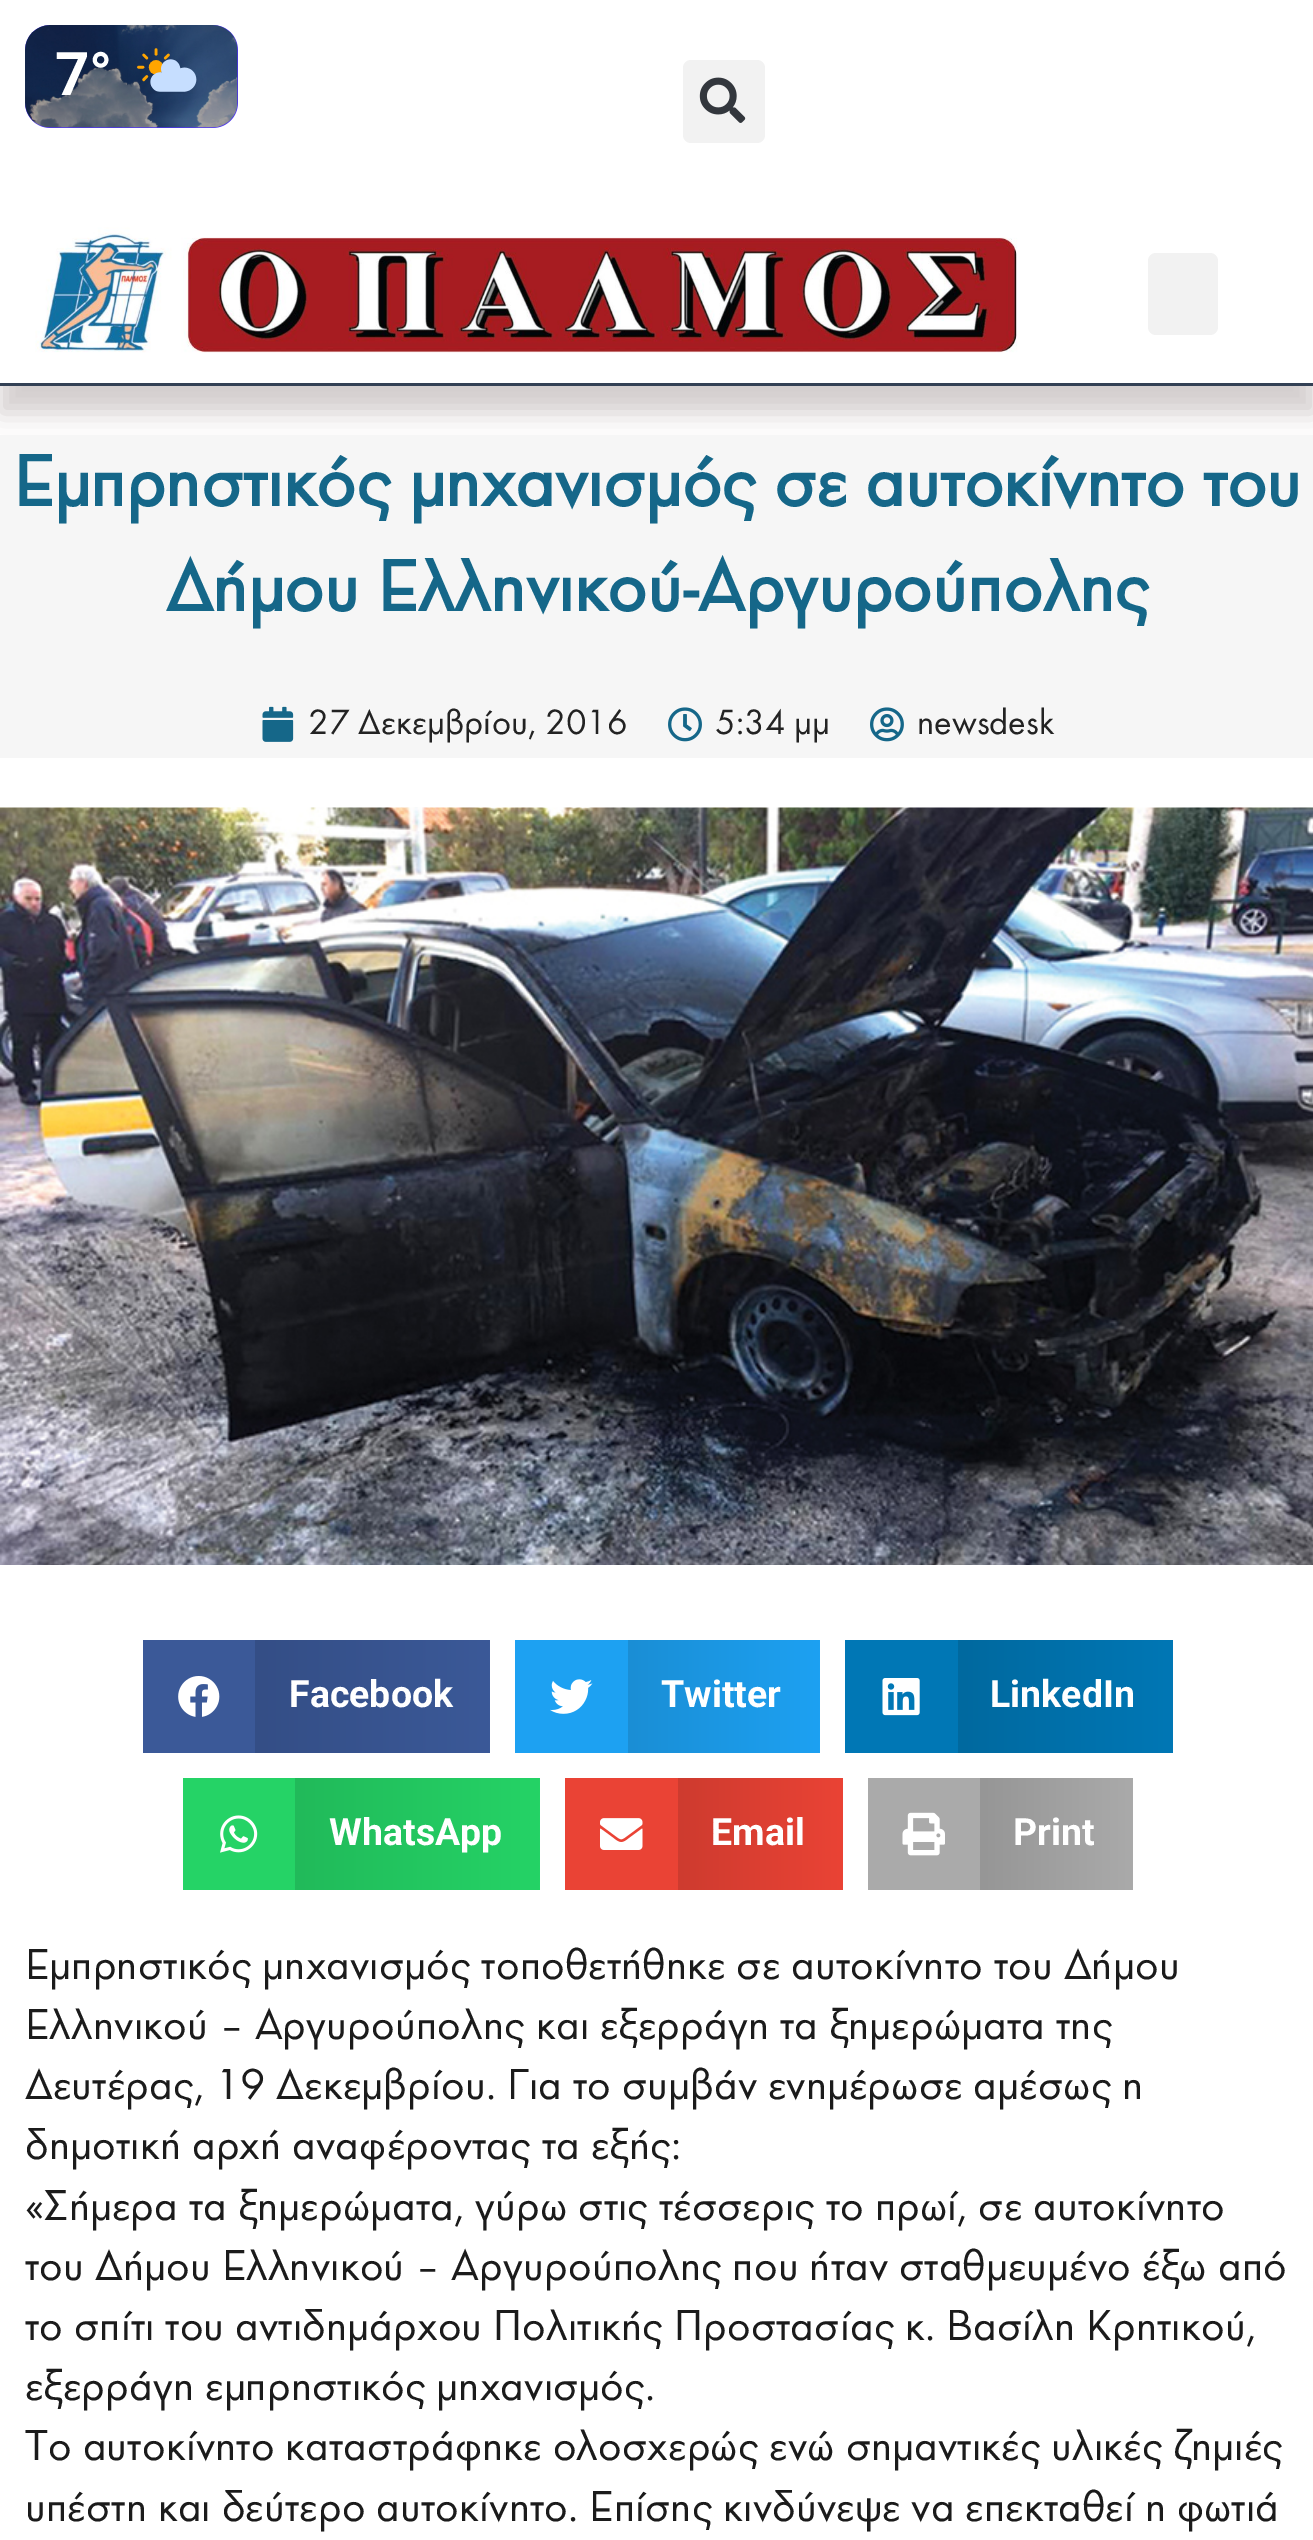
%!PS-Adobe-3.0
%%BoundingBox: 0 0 1313 2540
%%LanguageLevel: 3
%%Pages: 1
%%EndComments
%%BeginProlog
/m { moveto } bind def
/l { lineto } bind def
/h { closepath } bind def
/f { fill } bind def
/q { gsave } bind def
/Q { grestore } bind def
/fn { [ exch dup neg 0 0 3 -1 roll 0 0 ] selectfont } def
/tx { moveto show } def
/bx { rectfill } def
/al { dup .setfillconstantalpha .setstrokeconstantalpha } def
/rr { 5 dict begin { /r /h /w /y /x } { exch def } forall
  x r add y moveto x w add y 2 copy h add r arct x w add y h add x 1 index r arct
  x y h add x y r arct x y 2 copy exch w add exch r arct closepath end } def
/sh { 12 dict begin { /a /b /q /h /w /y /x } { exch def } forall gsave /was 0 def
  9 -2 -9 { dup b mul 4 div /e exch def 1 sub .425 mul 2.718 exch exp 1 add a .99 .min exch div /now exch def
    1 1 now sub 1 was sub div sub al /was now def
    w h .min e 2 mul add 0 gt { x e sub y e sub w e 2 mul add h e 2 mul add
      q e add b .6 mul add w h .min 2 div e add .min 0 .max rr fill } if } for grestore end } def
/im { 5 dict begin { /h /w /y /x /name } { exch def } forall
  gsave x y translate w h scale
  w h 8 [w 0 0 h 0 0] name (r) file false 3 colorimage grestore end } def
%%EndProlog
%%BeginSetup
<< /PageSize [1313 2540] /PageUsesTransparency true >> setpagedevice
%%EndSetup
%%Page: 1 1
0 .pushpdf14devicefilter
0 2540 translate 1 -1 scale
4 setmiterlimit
1 setgray
0 0 1313 2540 bx
q
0 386 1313 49 rectclip
0.655 0.608 0.608 setrgbcolor
0 28 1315 385 0 12.5 0.5 sh
Q
0.2 0.255 0.333 setrgbcolor
0 383 1313 3 bx
0.302 0.204 0.953 setrgbcolor
25 25 213 103 25 rr f
(image0.raw) 25 25 213 103 im
/Roboto-Bold 60 fn
1 setgray
(7°) 55 95 tx
(image1.raw) 137 48 60 46 im
0.949 setgray
683 60 82 83 8 rr f
(image2.raw) 699 77 47 46 im
(image3.raw) 35 227 983 126 im
1148 253 70 82 8 rr f
0.965 setgray
0 435 1313 323 bx
/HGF-Bold 75 fn
0.082 0.404 0.537 setrgbcolor
(Εμπρηστικός μηχανισμός σε αυτοκίνητο του) 13 506 tx
(Δήμου Ελληνικού-Αργυρούπολης) 166 611 tx
(image4.raw) 262 706 32 36 im
/HGF-Regular 36.5 fn
0.137 setgray
(27 Δεκεμβρίου, 2016) 308 734 tx
(image5.raw) 668 707 34 35 im
(5:34 μμ) 715 734 tx
(image6.raw) 870 707 34 35 im
(newsdesk) 917 734 tx
(image7.raw) 0 807 1313 758 im
0.231 0.349 0.596 setrgbcolor
143 1640 112 113 bx
(image8.raw) 178 1676 42 41 im
q 255 1640 m 490 1640 l 490 1753 l 255 1753 l h clip newpath
<< /ShadingType 2 /ColorSpace /DeviceRGB /Coords [255 1696 490 1696] /Extend [true true] /Function << /FunctionType 2 /Domain [0 1] /C0 [0.204 0.306 0.525] /C1 [0.231 0.349 0.596] /N 1 >> >> shfill Q
/Roboto-Bold 37.5 fn
1 setgray
(Facebook) 289 1707 tx
0.114 0.631 0.949 setrgbcolor
515 1640 113 113 bx
(image9.raw) 550 1679 43 35 im
q 628 1640 m 820 1640 l 820 1753 l 628 1753 l h clip newpath
<< /ShadingType 2 /ColorSpace /DeviceRGB /Coords [628 1696 820 1696] /Extend [true true] /Function << /FunctionType 2 /Domain [0 1] /C0 [0.102 0.557 0.835] /C1 [0.114 0.631 0.949] /N 1 >> >> shfill Q
1 setgray
(Twitter) 661 1707 tx
0 0.467 0.71 setrgbcolor
845 1640 113 113 bx
(image10.raw) 882 1678 38 38 im
q 958 1640 m 1173 1640 l 1173 1753 l 958 1753 l h clip newpath
<< /ShadingType 2 /ColorSpace /DeviceRGB /Coords [958 1696 1173 1696] /Extend [true true] /Function << /FunctionType 2 /Domain [0 1] /C0 [0 0.412 0.624] /C1 [0 0.467 0.71] /N 1 >> >> shfill Q
1 setgray
(LinkedIn) 990 1707 tx
0.145 0.827 0.4 setrgbcolor
183 1778 112 112 bx
(image11.raw) 220 1815 38 38 im
q 295 1778 m 540 1778 l 540 1890 l 295 1890 l h clip newpath
<< /ShadingType 2 /ColorSpace /DeviceRGB /Coords [295 1834 540 1834] /Extend [true true] /Function << /FunctionType 2 /Domain [0 1] /C0 [0.129 0.729 0.353] /C1 [0.145 0.827 0.4] /N 1 >> >> shfill Q
1 setgray
(WhatsApp) 329 1845 tx
0.918 0.263 0.208 setrgbcolor
565 1778 113 112 bx
(image12.raw) 600 1818 43 32 im
q 678 1778 m 843 1778 l 843 1890 l 678 1890 l h clip newpath
<< /ShadingType 2 /ColorSpace /DeviceRGB /Coords [678 1834 843 1834] /Extend [true true] /Function << /FunctionType 2 /Domain [0 1] /C0 [0.808 0.231 0.184] /C1 [0.918 0.263 0.208] /N 1 >> >> shfill Q
1 setgray
(Email) 711 1845 tx
0.667 setgray
868 1778 112 112 bx
(image13.raw) 902 1812 43 44 im
q 980 1778 m 1133 1778 l 1133 1890 l 980 1890 l h clip newpath
<< /ShadingType 2 /ColorSpace /DeviceRGB /Coords [980 1834 1133 1834] /Extend [true true] /Function << /FunctionType 2 /Domain [0 1] /C0 [0.588 0.588 0.588] /C1 [0.667 0.667 0.667] /N 1 >> >> shfill Q
1 setgray
(Print) 1013 1845 tx
/HGF-Regular 45 fn
0.106 setgray
(Εμπρηστικός μηχανισμός τοποθετήθηκε σε αυτοκίνητο του Δήμου) 25 1979 tx
(Ελληνικού – Αργυρούπολης και εξερράγη τα ξημερώματα της) 25 2039 tx
(Δευτέρας, 19 Δεκεμβρίου. Για το συμβάν ενημέρωσε αμέσως η) 25 2099 tx
(δημοτική αρχή αναφέροντας τα εξής:) 25 2159 tx
(«Σήμερα τα ξημερώματα, γύρω στις τέσσερις το πρωί, σε αυτοκίνητο) 25 2220 tx
(του Δήμου Ελληνικού – Αργυρούπολης που ήταν σταθμευμένο έξω από) 25 2280 tx
(το σπίτι του αντιδημάρχου Πολιτικής Προστασίας κ. Βασίλη Κρητικού,) 25 2340 tx
(εξερράγη εμπρηστικός μηχανισμός.) 25 2400 tx
(Το αυτοκίνητο καταστράφηκε ολοσχερώς ενώ σημαντικές υλικές ζημιές) 25 2460 tx
(υπέστη και δεύτερο αυτοκίνητο. Επίσης κινδύνεψε να επεκταθεί η φωτιά) 25 2521 tx
.poppdf14devicefilter showpage
%%EOF
